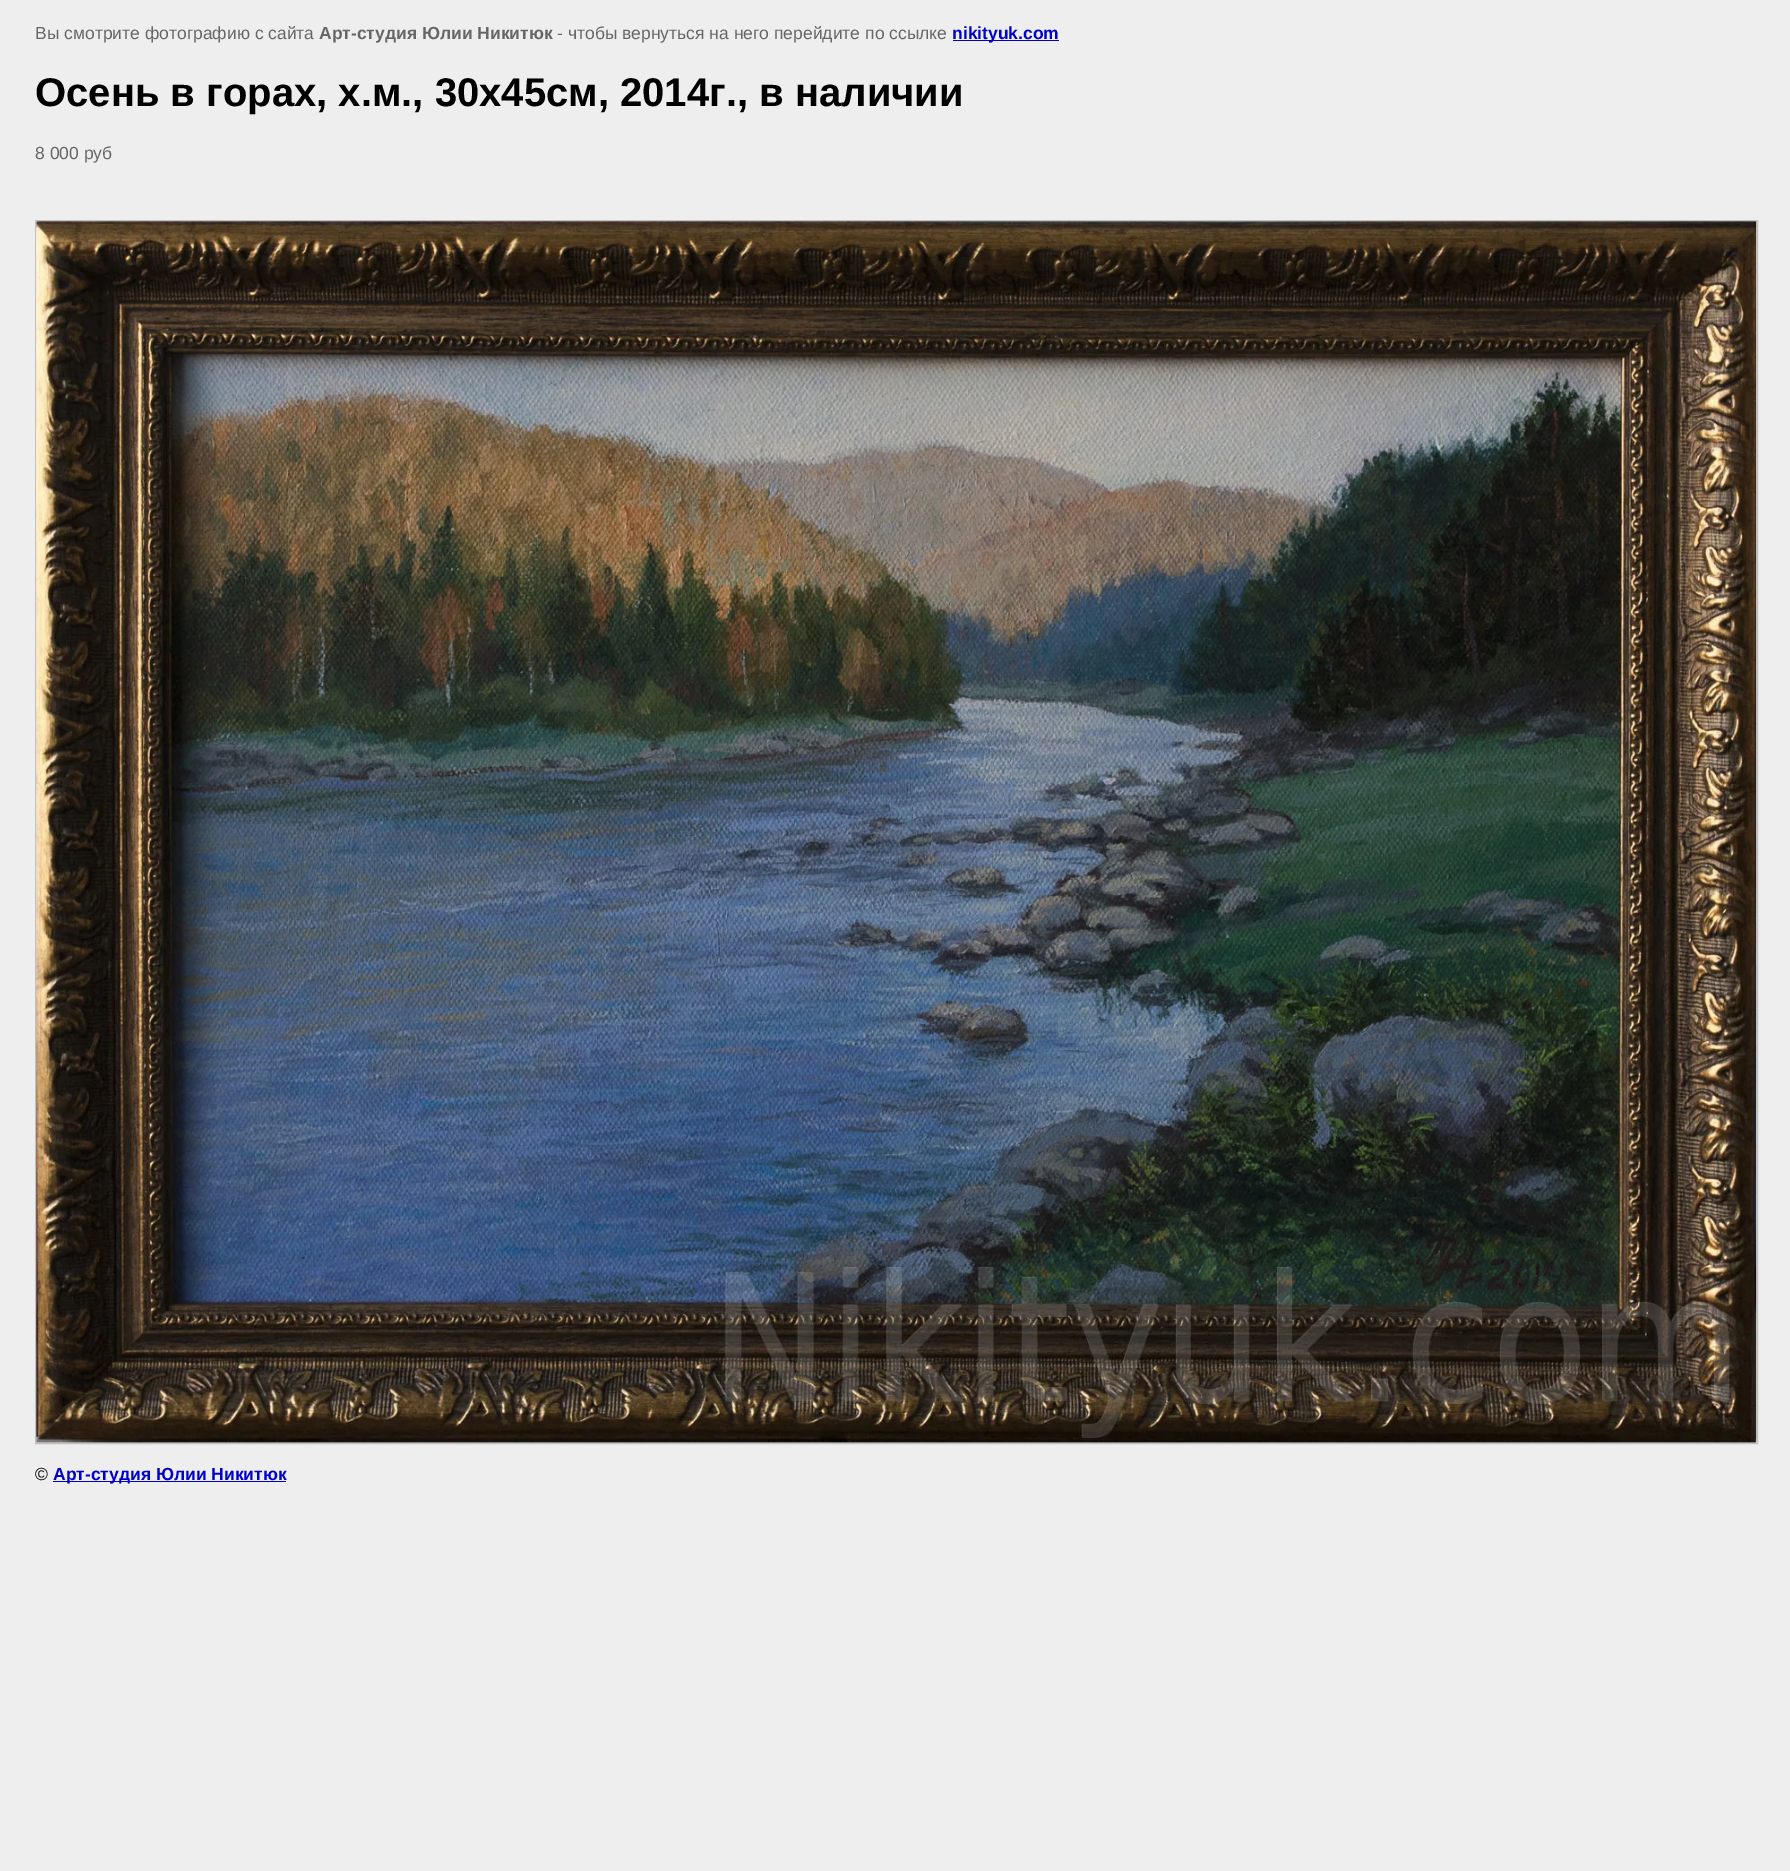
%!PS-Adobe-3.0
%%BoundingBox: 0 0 1790 1871
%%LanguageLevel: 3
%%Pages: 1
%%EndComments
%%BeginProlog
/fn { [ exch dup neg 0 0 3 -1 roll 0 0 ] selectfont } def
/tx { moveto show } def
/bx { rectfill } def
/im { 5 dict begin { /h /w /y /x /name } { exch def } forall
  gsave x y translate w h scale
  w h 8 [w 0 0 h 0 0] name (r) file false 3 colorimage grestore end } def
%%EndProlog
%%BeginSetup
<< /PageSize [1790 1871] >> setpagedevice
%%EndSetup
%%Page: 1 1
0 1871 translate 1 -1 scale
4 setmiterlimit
0.933 setgray
0 0 1790 1871 bx
/LiberationSans-Regular 17.5 fn
0.4 setgray
(Вы смотрите фотографию с сайта) 35 39 tx
/LiberationSans-Bold 17.5 fn
(Арт-студия Юлии Никитюк) 319 39 tx
/LiberationSans-Regular 17.5 fn
(- чтобы вернуться на него перейдите по ссылке) 557 39 tx
0 0 0.8 setrgbcolor
953 40 106 1 bx
/LiberationSans-Bold 17.5 fn
(nikityuk.com) 952 39 tx
/LiberationSans-Bold 40 fn
0 setgray
(Осень в горах, х.м., 30х45см, 2014г., в наличии) 35 106 tx
/LiberationSans-Regular 17.5 fn
0.4 setgray
(8 000 руб) 35 159 tx
0.753 setgray
35.5 220.5 1722 1223 rectstroke
(image0.raw) 36 221 1721 1222 im
0 setgray
(©) 35 1480 tx
0 0 0.8 setrgbcolor
53 1481 233 1 bx
/LiberationSans-Bold 17.5 fn
(Арт-студия Юлии Никитюк) 53 1480 tx
showpage
%%EOF
